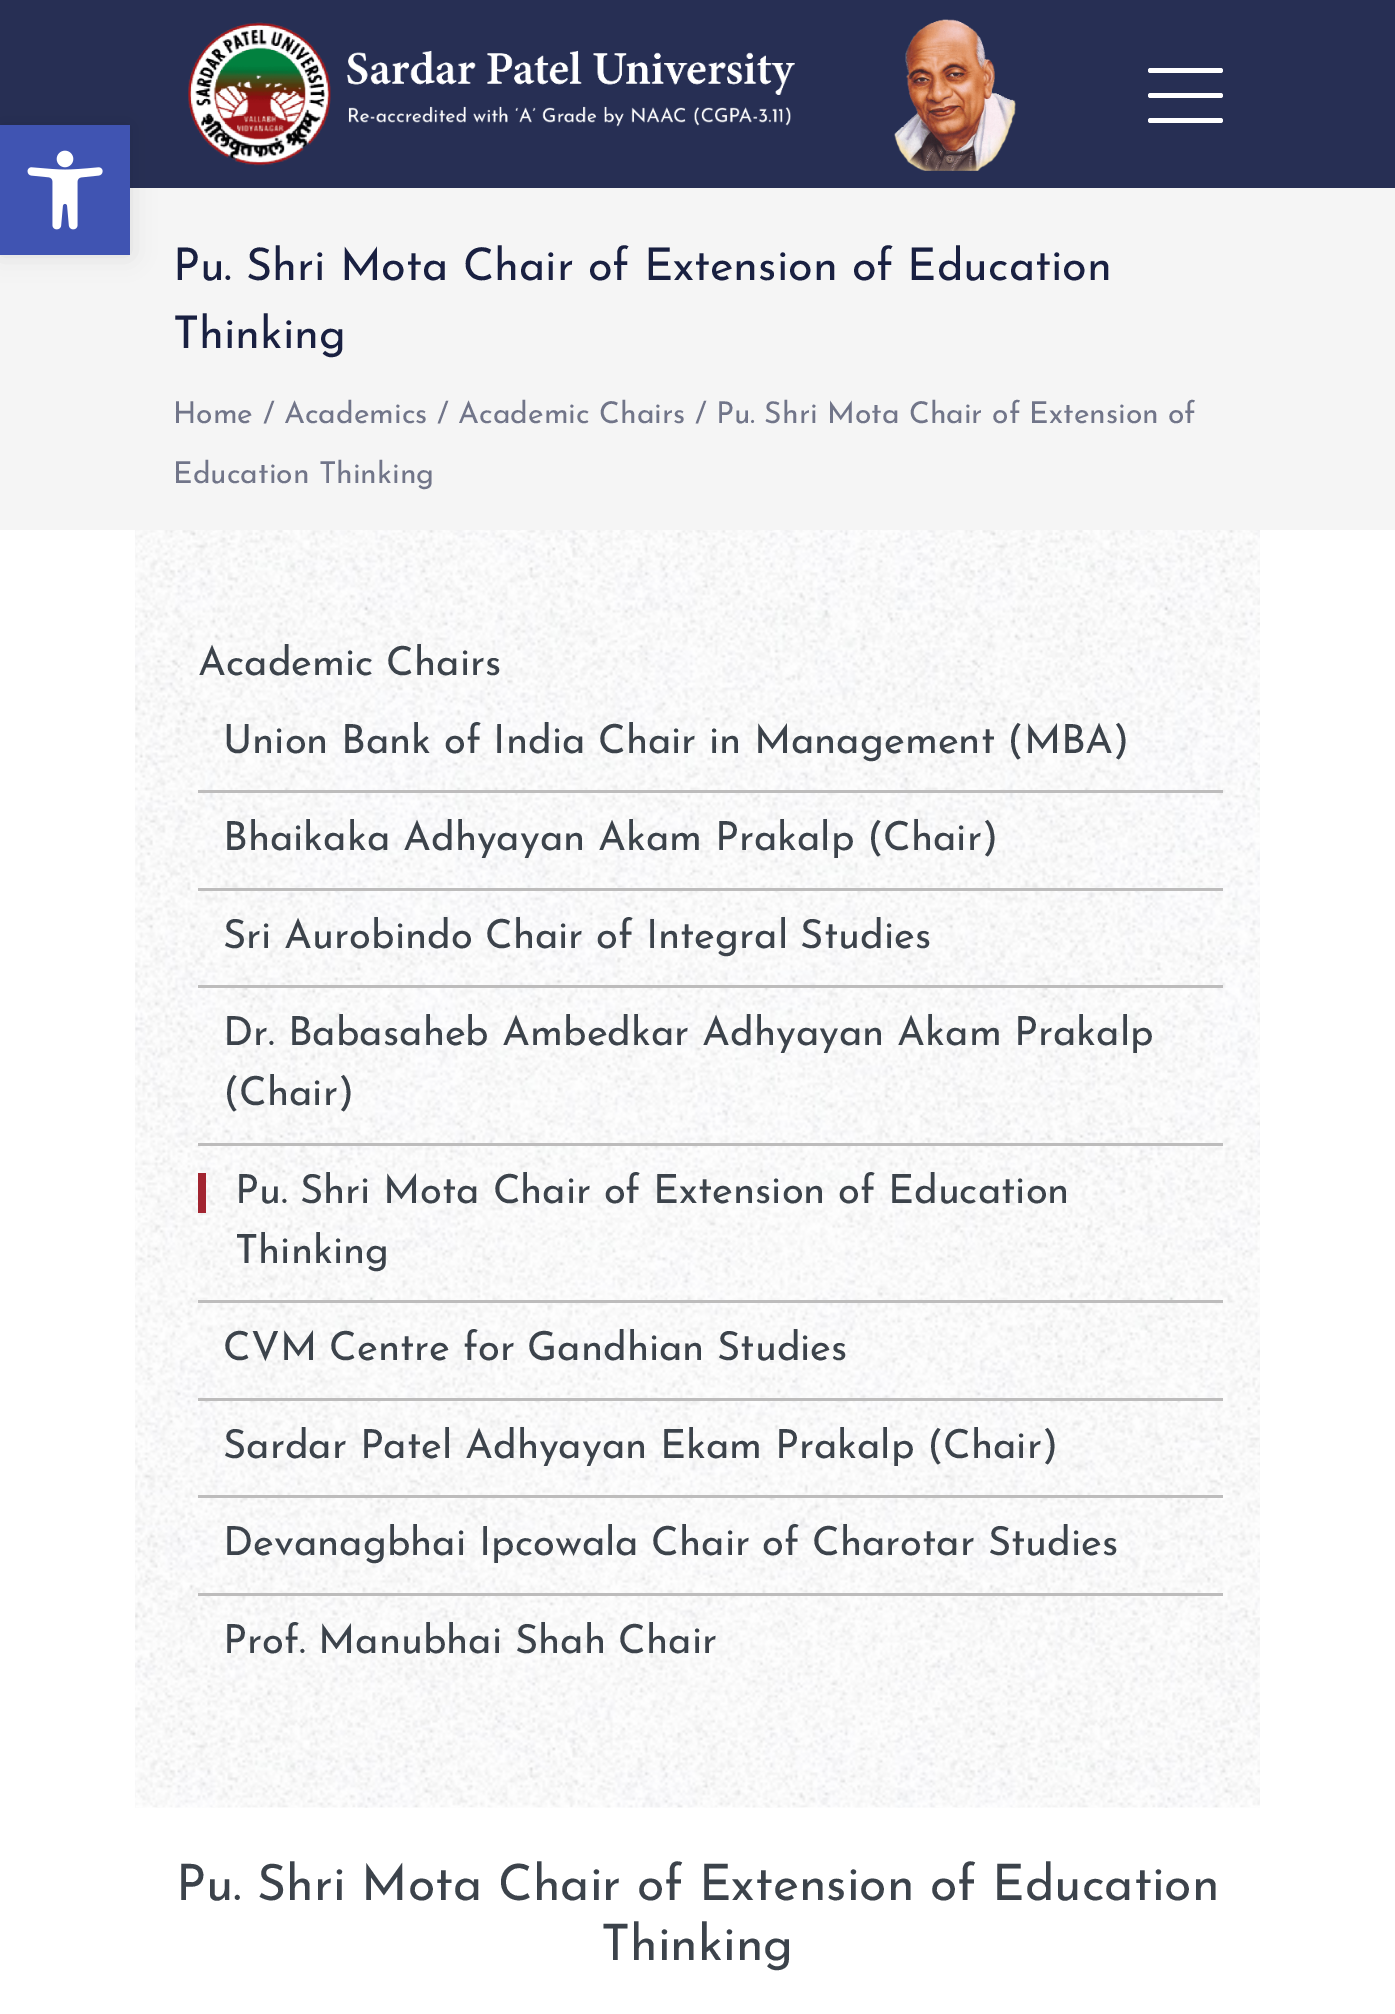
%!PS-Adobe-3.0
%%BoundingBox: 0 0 1395 2014
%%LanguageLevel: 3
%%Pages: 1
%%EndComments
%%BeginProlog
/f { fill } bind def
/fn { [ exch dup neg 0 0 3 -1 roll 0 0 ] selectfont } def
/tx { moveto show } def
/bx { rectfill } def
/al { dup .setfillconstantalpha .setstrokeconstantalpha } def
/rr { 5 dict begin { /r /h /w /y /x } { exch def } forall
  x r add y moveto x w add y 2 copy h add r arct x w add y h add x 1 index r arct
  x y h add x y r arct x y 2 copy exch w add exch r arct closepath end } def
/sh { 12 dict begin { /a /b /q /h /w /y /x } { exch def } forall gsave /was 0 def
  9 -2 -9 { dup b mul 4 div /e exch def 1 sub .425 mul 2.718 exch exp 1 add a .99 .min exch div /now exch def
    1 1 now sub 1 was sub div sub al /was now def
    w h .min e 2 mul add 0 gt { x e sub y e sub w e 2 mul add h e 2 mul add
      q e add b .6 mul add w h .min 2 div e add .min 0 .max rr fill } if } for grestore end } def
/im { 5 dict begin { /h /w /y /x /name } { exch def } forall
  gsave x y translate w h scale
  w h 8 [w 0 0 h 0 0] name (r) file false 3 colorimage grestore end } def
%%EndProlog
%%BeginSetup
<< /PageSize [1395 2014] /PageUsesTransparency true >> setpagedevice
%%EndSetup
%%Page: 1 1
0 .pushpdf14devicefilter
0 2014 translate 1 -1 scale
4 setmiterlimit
1 setgray
0 0 1395 2014 bx
0.153 0.184 0.329 setrgbcolor
0 0 1395 188 bx
(image0.raw) 188 19 828 152 im
1 setgray
1148 93 75 5 2.5 rr f
1148 68 75 5 2.5 rr f
1148 118 75 5 2.5 rr f
0.961 setgray
0 188 1395 342 bx
0 setgray
0 125 130 130 0 12.5 0.1 sh
0.251 0.329 0.698 setrgbcolor
0 125 130 130 bx
(image1.raw) 27 150 76 80 im
/JosefinSans-Regular 45 fn
0.098 0.125 0.255 setrgbcolor
(Pu. Shri Mota Chair of Extension of Education) 173 280 tx
(Thinking) 173 348 tx
/JosefinSans-Regular 30 fn
0.443 0.459 0.537 setrgbcolor
(Home / Academics / Academic Chairs / Pu. Shri Mota Chair of Extension of) 173 423 tx
(Education Thinking) 173 483 tx
(image2.raw) 135 530 1125 1278 im
/JosefinSans-Regular 40 fn
0.235 0.263 0.294 setrgbcolor
(Academic Chairs) 198 675 tx
(Union Bank of India Chair in Management \(MBA\)) 223 753 tx
0.741 0.737 0.737 setrgbcolor
198 790 1025 3 bx
0.235 0.263 0.294 setrgbcolor
(Bhaikaka Adhyayan Akam Prakalp \(Chair\)) 223 850 tx
0.741 0.737 0.737 setrgbcolor
198 888 1025 3 bx
0.235 0.263 0.294 setrgbcolor
(Sri Aurobindo Chair of Integral Studies) 223 948 tx
0.741 0.737 0.737 setrgbcolor
198 985 1025 3 bx
0.235 0.263 0.294 setrgbcolor
(Dr. Babasaheb Ambedkar Adhyayan Akam Prakalp) 223 1045 tx
(\(Chair\)) 223 1105 tx
0.741 0.737 0.737 setrgbcolor
198 1143 1025 3 bx
0.635 0.145 0.192 setrgbcolor
198 1173 8 40 bx
0.235 0.263 0.294 setrgbcolor
(Pu. Shri Mota Chair of Extension of Education) 235 1203 tx
(Thinking) 235 1263 tx
0.741 0.737 0.737 setrgbcolor
198 1300 1025 3 bx
0.235 0.263 0.294 setrgbcolor
(CVM Centre for Gandhian Studies) 223 1360 tx
0.741 0.737 0.737 setrgbcolor
198 1398 1025 3 bx
0.235 0.263 0.294 setrgbcolor
(Sardar Patel Adhyayan Ekam Prakalp \(Chair\)) 223 1458 tx
0.741 0.737 0.737 setrgbcolor
198 1495 1025 3 bx
0.235 0.263 0.294 setrgbcolor
(Devanagbhai Ipcowala Chair of Charotar Studies) 223 1555 tx
0.741 0.737 0.737 setrgbcolor
198 1593 1025 3 bx
0.235 0.263 0.294 setrgbcolor
(Prof. Manubhai Shah Chair) 223 1653 tx
/JosefinSans-Regular 50 fn
(Pu. Shri Mota Chair of Extension of Education) 176 1900 tx
(Thinking) 601 1960 tx
.poppdf14devicefilter showpage
%%EOF
